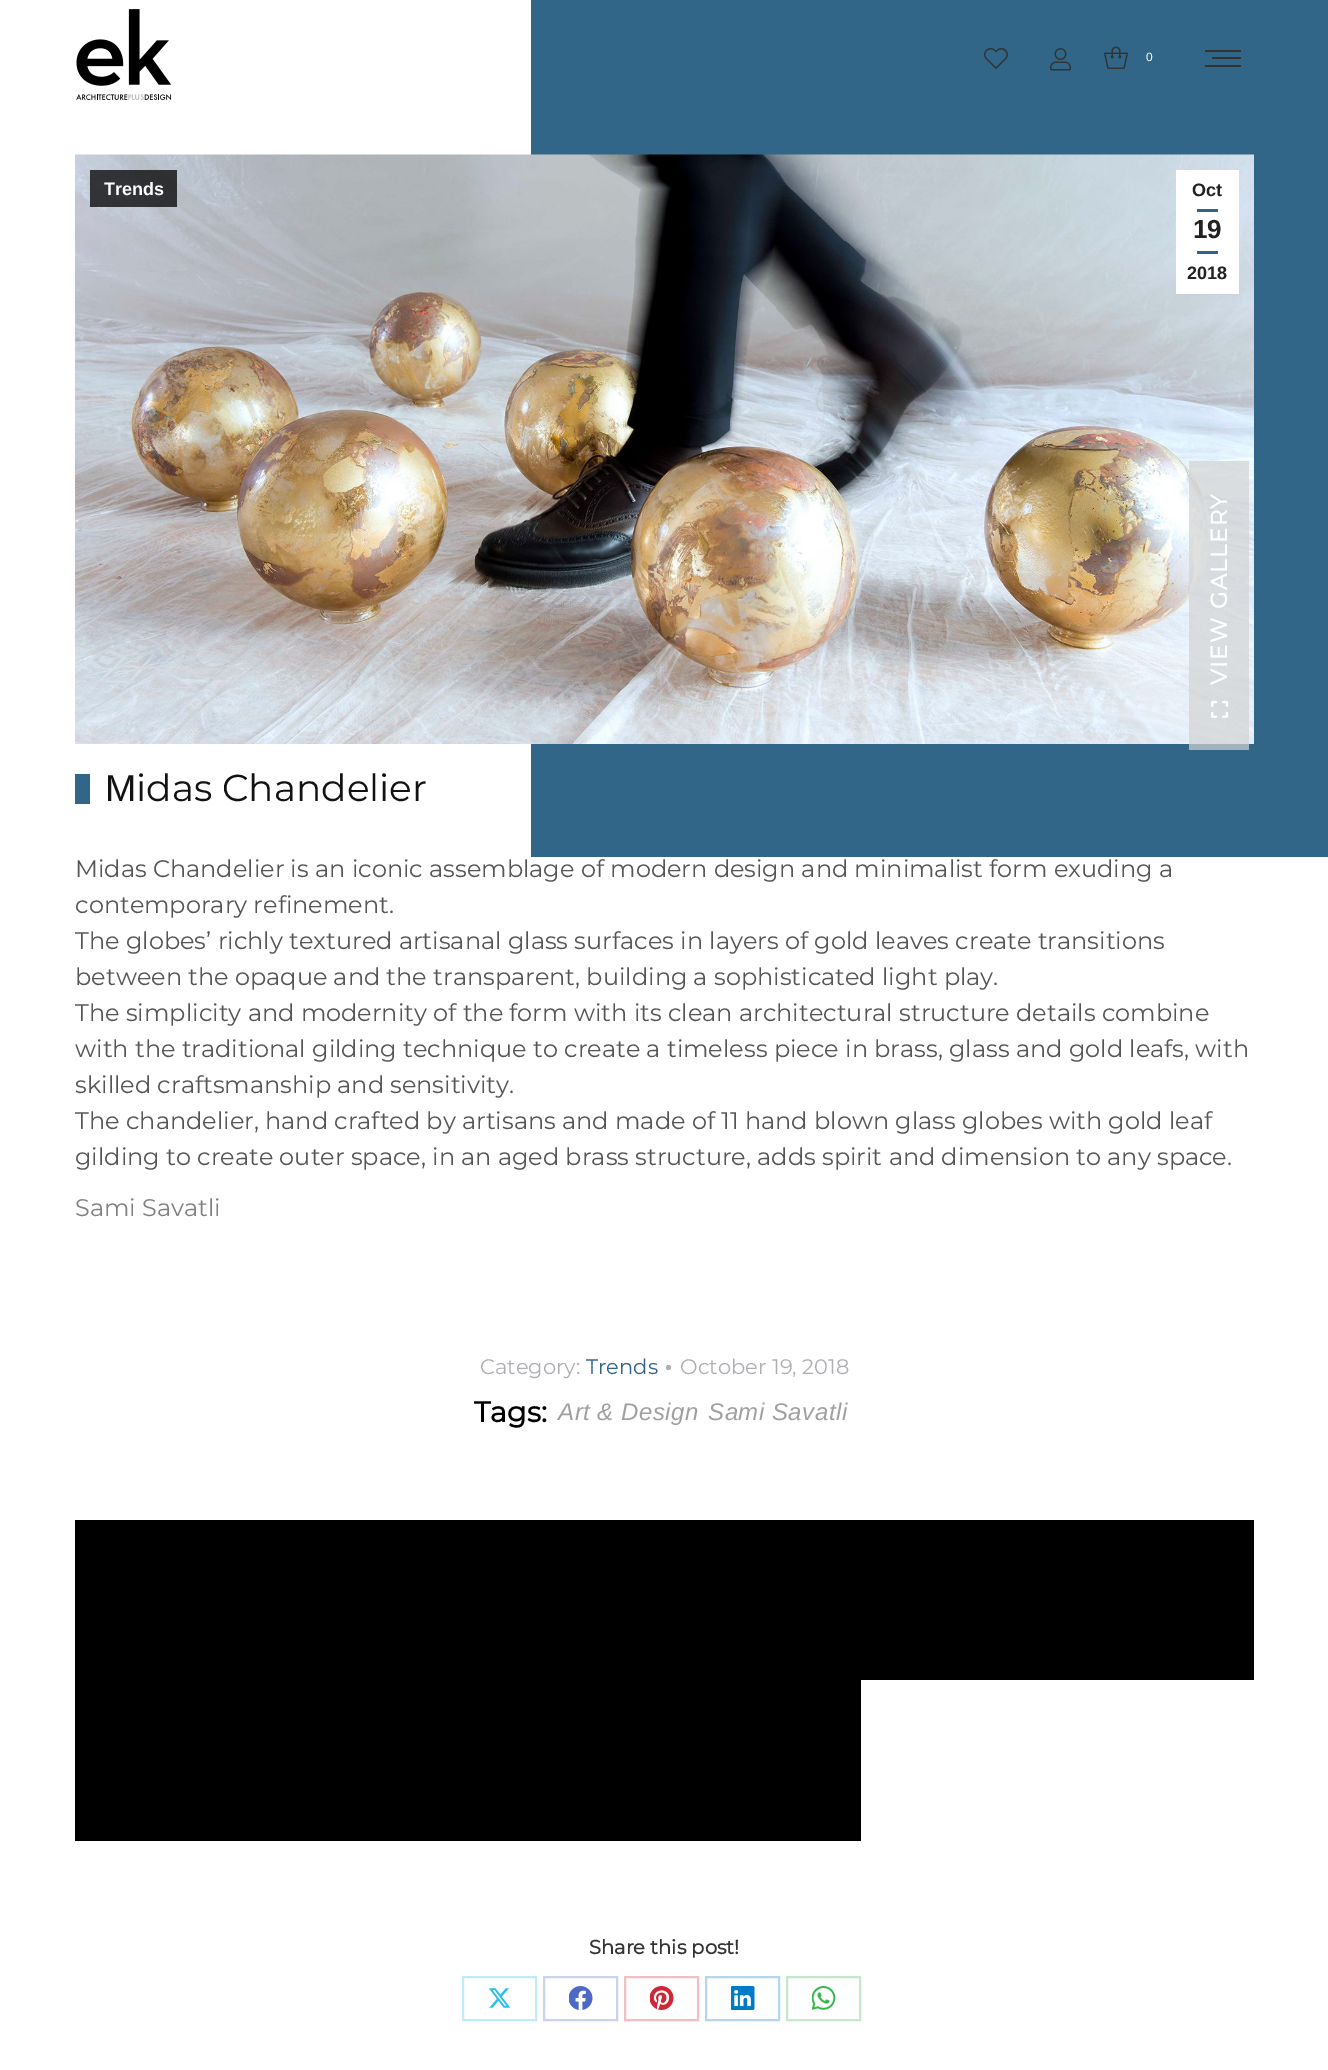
%!PS-Adobe-3.0
%%BoundingBox: 0 0 1328 2070
%%LanguageLevel: 3
%%Pages: 1
%%EndComments
%%BeginProlog
/m { moveto } bind def
/f { fill } bind def
/q { gsave } bind def
/Q { grestore } bind def
/w { setlinewidth } bind def
/fn { [ exch dup neg 0 0 3 -1 roll 0 0 ] selectfont } def
/tx { moveto show } def
/bx { rectfill } def
/al { dup .setfillconstantalpha .setstrokeconstantalpha } def
/ci { newpath 0 360 arc closepath } def
/im { 5 dict begin { /h /w /y /x /name } { exch def } forall
  gsave x y translate w h scale
  w h 8 [w 0 0 h 0 0] name (r) file false 3 colorimage grestore end } def
%%EndProlog
%%BeginSetup
<< /PageSize [1328 2070] /PageUsesTransparency true >> setpagedevice
%%EndSetup
%%Page: 1 1
0 .pushpdf14devicefilter
0 2070 translate 1 -1 scale
4 setmiterlimit
1 setgray
0 0 1328 2070 bx
0.192 0.4 0.533 setrgbcolor
531 0 797 857 bx
(image0.raw) 76 9 96 91 im
(image1.raw) 984 48 24 21 im
(image2.raw) 1050 48 21 23 im
(image3.raw) 1104 46 24 23 im
/LiberationSans-Regular 12 fn
1 setgray
(0) 1146 61 tx
0.2 setgray
1205 50 36 2 bx
1212 57 29 2 bx
1205 65 36 2 bx
(image4.raw) 75 154 1179 590 im
0.75 al
0 setgray
90 170 87 37 bx
/LiberationSans-Bold 18 fn
1 al
1 setgray
(Trends) 104 195 tx
1176 170 63 124 bx
0.133 setgray
(Oct) 1192 196 tx
0.192 0.4 0.533 setrgbcolor
1197 209 21 3 bx
/LiberationSans-Bold 26 fn
0.133 setgray
(19) 1193 238 tx
0.192 0.4 0.533 setrgbcolor
1197 251 21 3 bx
/LiberationSans-Bold 18 fn
0.133 setgray
(2018) 1187 279 tx
0.7 al
0.827 setgray
1189 461 60 289 bx
/Montserrat-Bold 22.5 fn
1 al
1 setgray
q 1227 685 translate -90 rotate 0 0 m 1.5 0 (VIEW GALLERY) ashow Q
(image5.raw) 1211 700 18 18 im
0.192 0.4 0.533 setrgbcolor
75 774 15 30 bx
/LiberationSans-Regular 37.5 fn
0.071 setgray
(Μ) 105 801 tx
/Montserrat-Regular 37.5 fn
(idas Chandelier) 136 801 tx
/Montserrat-Regular 24 fn
0.329 0.333 0.337 setrgbcolor
(Midas Chandelier is an iconic assemblage of modern design and minimalist form exuding a) 75 877 tx
(contemporary refinement.) 75 913 tx
(The globes’ richly textured artisanal glass surfaces in layers of gold leaves create transitions) 75 949 tx
(between the opaque and the transparent, building a sophisticated light play.) 75 985 tx
(The simplicity and modernity of the form with its clean architectural structure details combine) 75 1021 tx
(with the traditional gilding technique to create a timeless piece in brass, glass and gold leafs, with) 75 1057 tx
(skilled craftsmanship and sensitivity.) 75 1093 tx
(The chandelier, hand crafted by artisans and made of 11 hand blown glass globes with gold leaf) 75 1129 tx
(gilding to create outer space, in an aged brass structure, adds spirit and dimension to any space.) 75 1165 tx
0.502 setgray
(Sami Savatli) 75 1216 tx
/Montserrat-Regular 21 fn
0.678 0.686 0.702 setrgbcolor
(Category:) 480 1374 tx
0.192 0.4 0.533 setrgbcolor
(Trends) 586 1374 tx
0.678 0.686 0.702 setrgbcolor
668.5 1367.5 2.5 ci f
(October 19, 2018) 680 1374 tx
/Montserrat-Bold 28.5 fn
0 setgray
(Tags:) 474 1422 tx
/LiberationSans-Italic 24 fn
0.627 setgray
558 1420 m 0.5 0 (Art & Design) ashow
708 1420 m 0.5 0 (Sami Savatli) ashow
0 setgray
75 1520 393 321 bx
468 1520 393 321 bx
861 1520 393 160 bx
/Montserrat-Bold 19.5 fn
0.2 setgray
(Share this post!) 589 1954 tx
0.749 0.925 0.976 setrgbcolor
2 w
463 1977 73 43 rectstroke
(image6.raw) 488 1988 23 20 im
0.788 0.824 0.933 setrgbcolor
544 1977 73 43 rectstroke
(image7.raw) 569 1986 24 24 im
0.945 0.749 0.761 setrgbcolor
625 1977 73 43 rectstroke
(image8.raw) 650 1986 24 24 im
0.702 0.843 0.933 setrgbcolor
706 1977 73 43 rectstroke
(image9.raw) 731 1986 24 24 im
0.765 0.914 0.792 setrgbcolor
787 1977 73 43 rectstroke
(image10.raw) 812 1986 24 24 im
.poppdf14devicefilter showpage
%%EOF
